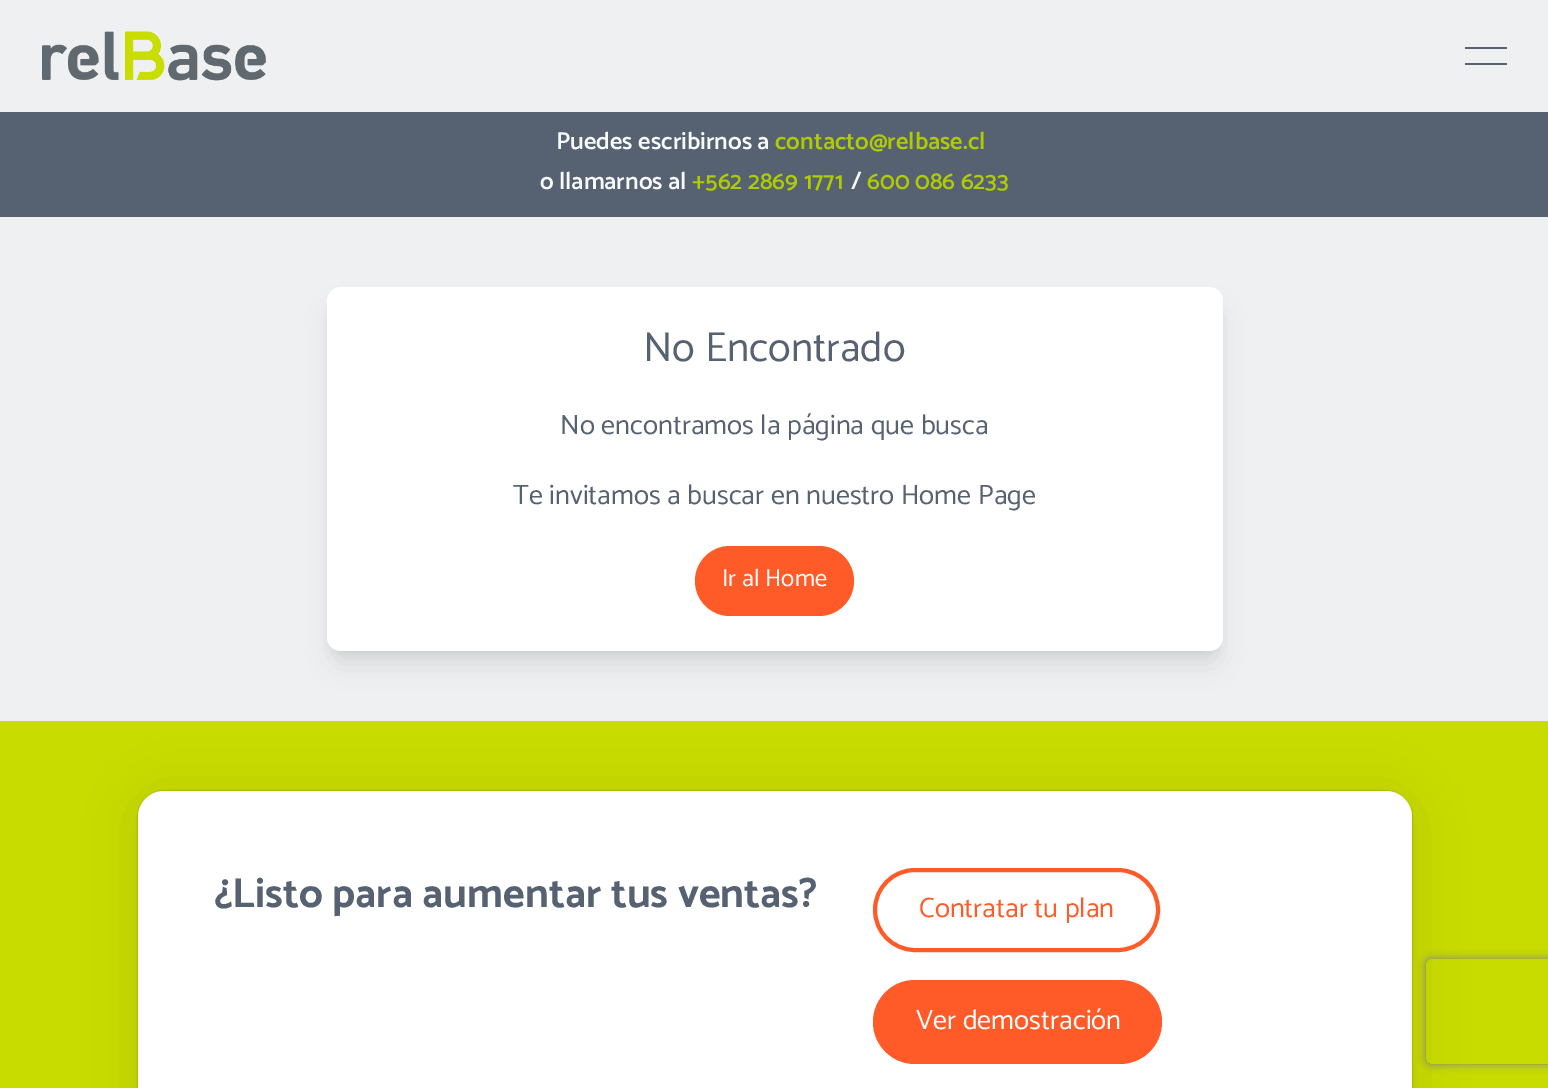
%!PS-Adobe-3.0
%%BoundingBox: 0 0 1548 1088
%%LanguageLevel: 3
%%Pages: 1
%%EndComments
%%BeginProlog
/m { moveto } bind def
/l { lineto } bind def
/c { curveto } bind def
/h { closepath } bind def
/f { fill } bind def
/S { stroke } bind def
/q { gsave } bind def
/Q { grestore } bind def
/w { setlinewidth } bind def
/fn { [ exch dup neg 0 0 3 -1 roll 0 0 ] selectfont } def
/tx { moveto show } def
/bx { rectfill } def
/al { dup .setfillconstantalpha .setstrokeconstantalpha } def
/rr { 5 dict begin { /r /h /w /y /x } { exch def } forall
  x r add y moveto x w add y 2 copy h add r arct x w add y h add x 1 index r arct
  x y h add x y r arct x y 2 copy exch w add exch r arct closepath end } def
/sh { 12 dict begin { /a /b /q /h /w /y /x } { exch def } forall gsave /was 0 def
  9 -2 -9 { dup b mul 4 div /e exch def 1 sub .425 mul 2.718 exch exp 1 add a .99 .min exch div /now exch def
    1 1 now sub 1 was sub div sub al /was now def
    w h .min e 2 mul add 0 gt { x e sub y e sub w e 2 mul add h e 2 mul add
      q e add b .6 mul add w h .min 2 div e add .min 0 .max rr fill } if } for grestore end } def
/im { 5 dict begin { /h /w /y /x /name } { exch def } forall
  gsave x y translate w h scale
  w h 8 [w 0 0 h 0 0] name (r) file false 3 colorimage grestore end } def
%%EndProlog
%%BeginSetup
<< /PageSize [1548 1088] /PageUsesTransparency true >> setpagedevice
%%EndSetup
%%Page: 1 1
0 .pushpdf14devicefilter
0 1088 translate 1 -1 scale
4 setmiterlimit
0.937 0.941 0.945 setrgbcolor
0 0 1548 1088 bx
(image0.raw) 42 31 224 50 im
0.337 0.384 0.443 setrgbcolor
1465 47 42 2 bx
1465 63 42 2 bx
0 112 1548 105 bx
/Catamaran-SemiBold 24.5 fn
0.973 0.98 0.988 setrgbcolor
(Puedes escribirnos a) 556 149 tx
0.69 0.796 0.004 setrgbcolor
(contacto@relbase.cl) 775 149 tx
0.973 0.98 0.988 setrgbcolor
(o llamarnos al) 540 189 tx
0.69 0.796 0.004 setrgbcolor
(+562 2869 1771) 692 189 tx
0.973 0.98 0.988 setrgbcolor
(/) 851 189 tx
0.69 0.796 0.004 setrgbcolor
(600 086 6233) 867 189 tx
0 setgray
334 301 882 350 7 5 0.1 sh
333 310 885 353 9 13 0.1 sh
1 setgray
327 287 896 364 14 rr f
/Catamaran-Regular 42 fn
0.337 0.384 0.443 setrgbcolor
(No Encontrado) 643 361 tx
/Catamaran-Regular 28 fn
(No encontramos la página que busca) 560 434 tx
(Te invitamos a buscar en nuestro Home Page) 513 504 tx
1 0.357 0.161 setrgbcolor
695 546 159 70 35 rr f
/Catamaran-Regular 24.5 fn
1 setgray
(Ir al Home) 722 586 tx
0.788 0.863 0 setrgbcolor
0 721 1548 367 bx
0 setgray
138 791 1274 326 26 1 0.3 sh
138 795 1274 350 26 26 0.08 sh
1 setgray
138 791 1274 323 26 rr f
/Catamaran-Bold 42 fn
0.337 0.384 0.443 setrgbcolor
(¿Listo para aumentar tus ventas?) 214 907 tx
1 0.357 0.161 setrgbcolor
4 w
875 870 283 80 40 rr S
/Catamaran-Regular 28 fn
(Contratar tu plan) 919 917 tx
873 980 289 84 42 rr f
1 setgray
(Ver demostración) 916 1029 tx
q
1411 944 m 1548 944 l 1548 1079 l 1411 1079 l h 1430 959 m 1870 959 l 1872 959 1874 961 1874 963 c 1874 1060 l 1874 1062 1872 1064 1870 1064 c 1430 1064 l 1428 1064 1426 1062 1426 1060 c 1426 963 l 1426 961 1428 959 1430 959 c h eoclip newpath
0.502 setgray
1426 959 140 105 4 4.5 1 sh
Q
.poppdf14devicefilter showpage
%%EOF
